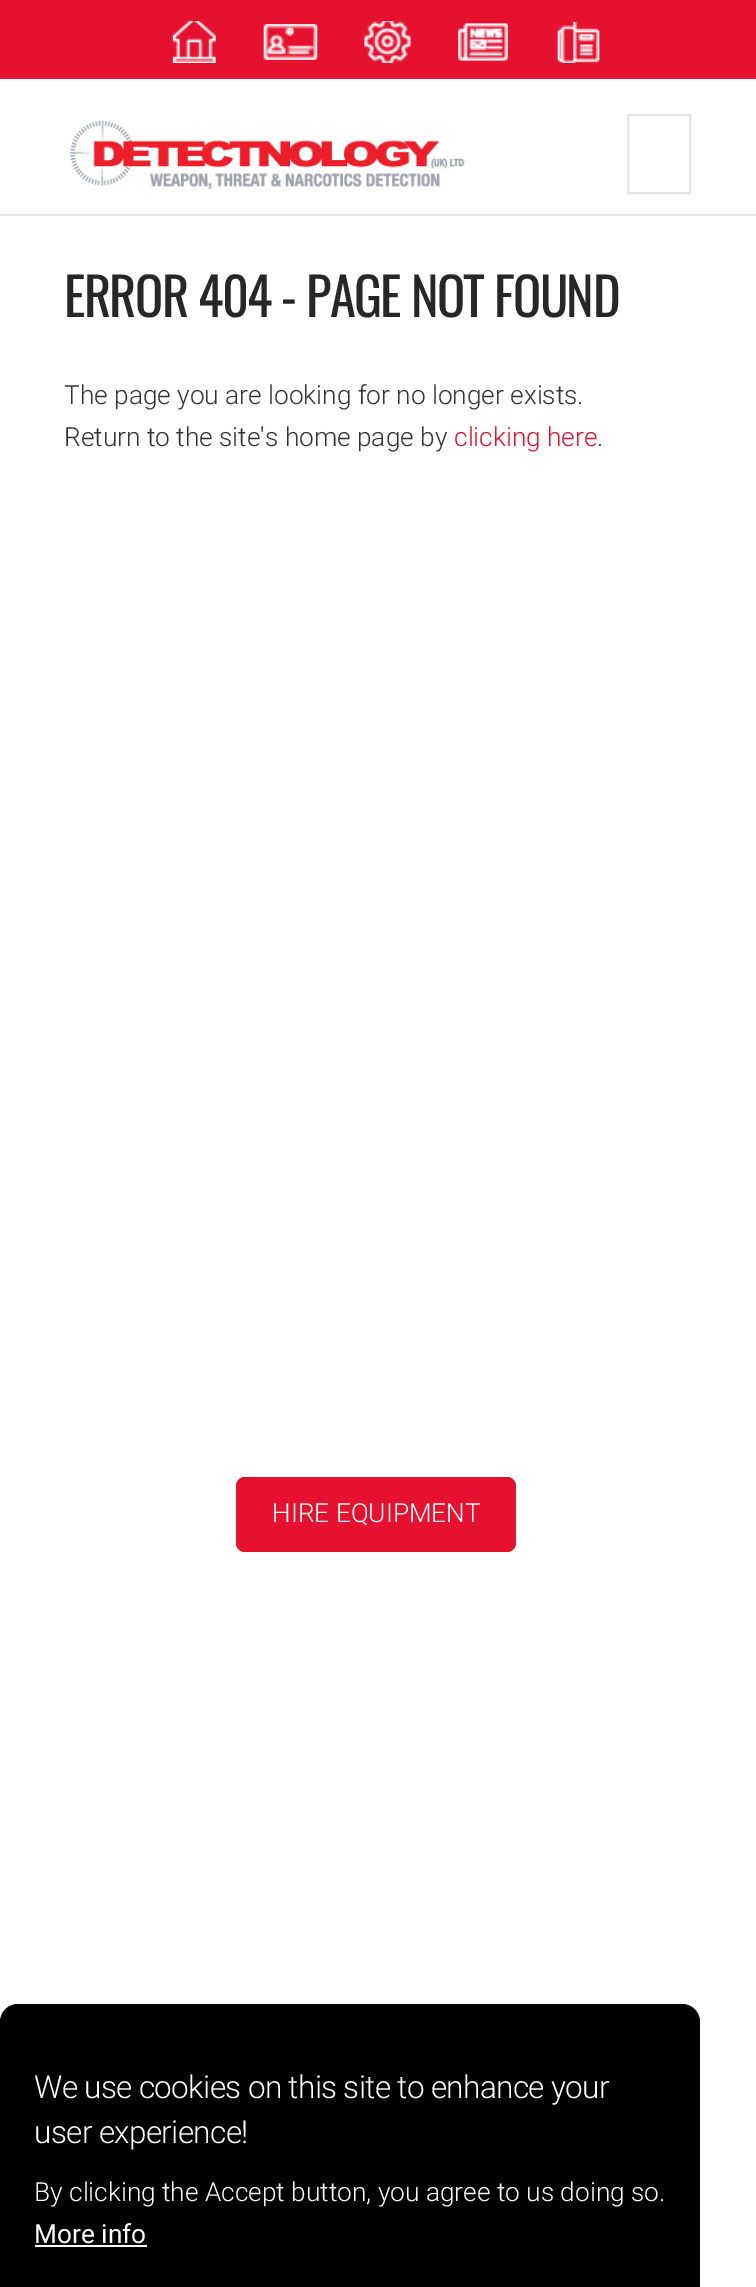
%!PS-Adobe-3.0
%%BoundingBox: 0 0 756 2287
%%LanguageLevel: 3
%%Pages: 1
%%EndComments
%%BeginProlog
/m { moveto } bind def
/f { fill } bind def
/w { setlinewidth } bind def
/fn { [ exch dup neg 0 0 3 -1 roll 0 0 ] selectfont } def
/tx { moveto show } def
/bx { rectfill } def
/rr { 5 dict begin { /r /h /w /y /x } { exch def } forall
  x r add y moveto x w add y 2 copy h add r arct x w add y h add x 1 index r arct
  x y h add x y r arct x y 2 copy exch w add exch r arct closepath end } def
/im { 5 dict begin { /h /w /y /x /name } { exch def } forall
  gsave x y translate w h scale
  w h 8 [w 0 0 h 0 0] name (r) file false 3 colorimage grestore end } def
%%EndProlog
%%BeginSetup
<< /PageSize [756 2287] >> setpagedevice
%%EndSetup
%%Page: 1 1
0 2287 translate 1 -1 scale
4 setmiterlimit
1 setgray
0 0 756 2287 bx
0.898 0.067 0.184 setrgbcolor
0 0 756 79 bx
(image0.raw) 172 21 44 42 im
(image1.raw) 263 24 55 36 im
(image2.raw) 364 21 47 42 im
(image3.raw) 458 23 50 38 im
(image4.raw) 557 21 43 42 im
0.91 0.91 0.914 setrgbcolor
0 214 756 2 bx
(image5.raw) 69 120 396 70 im
0.89 setgray
2 w
628 115 62 78 rectstroke
/Oswald-Regular 52.5 fn
0.153 setgray
64 317 m -1.6 0 (ERROR 404 - PAGE NOT FOUND) ashow
/Roboto-Light 26.25 fn
0.2 setgray
(The page you are looking for no longer exists.) 64 404 tx
(Return to the site's home page by) 64 446 tx
0.898 0.067 0.184 setrgbcolor
(clicking here) 454 446 tx
0.2 setgray
(.) 597 446 tx
0.898 0.067 0.184 setrgbcolor
236 1477 280 75 9 rr f
1 setgray
(HIRE EQUIPMENT) 272 1522 tx
0 setgray
0 2004 700 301 18 rr f
/Roboto-Light 31.5 fn
1 setgray
34 2098 m -0.65 0 (We use cookies on this site to enhance your) ashow
34 2143 m -0.65 0 (user experience!) ashow
/Roboto-Light 26.25 fn
(By clicking the Accept button, you agree to us doing so.) 34 2201 tx
/Roboto-Regular 26.25 fn
(More info) 34 2243 tx
35 2245 112 2 bx
showpage
%%EOF
